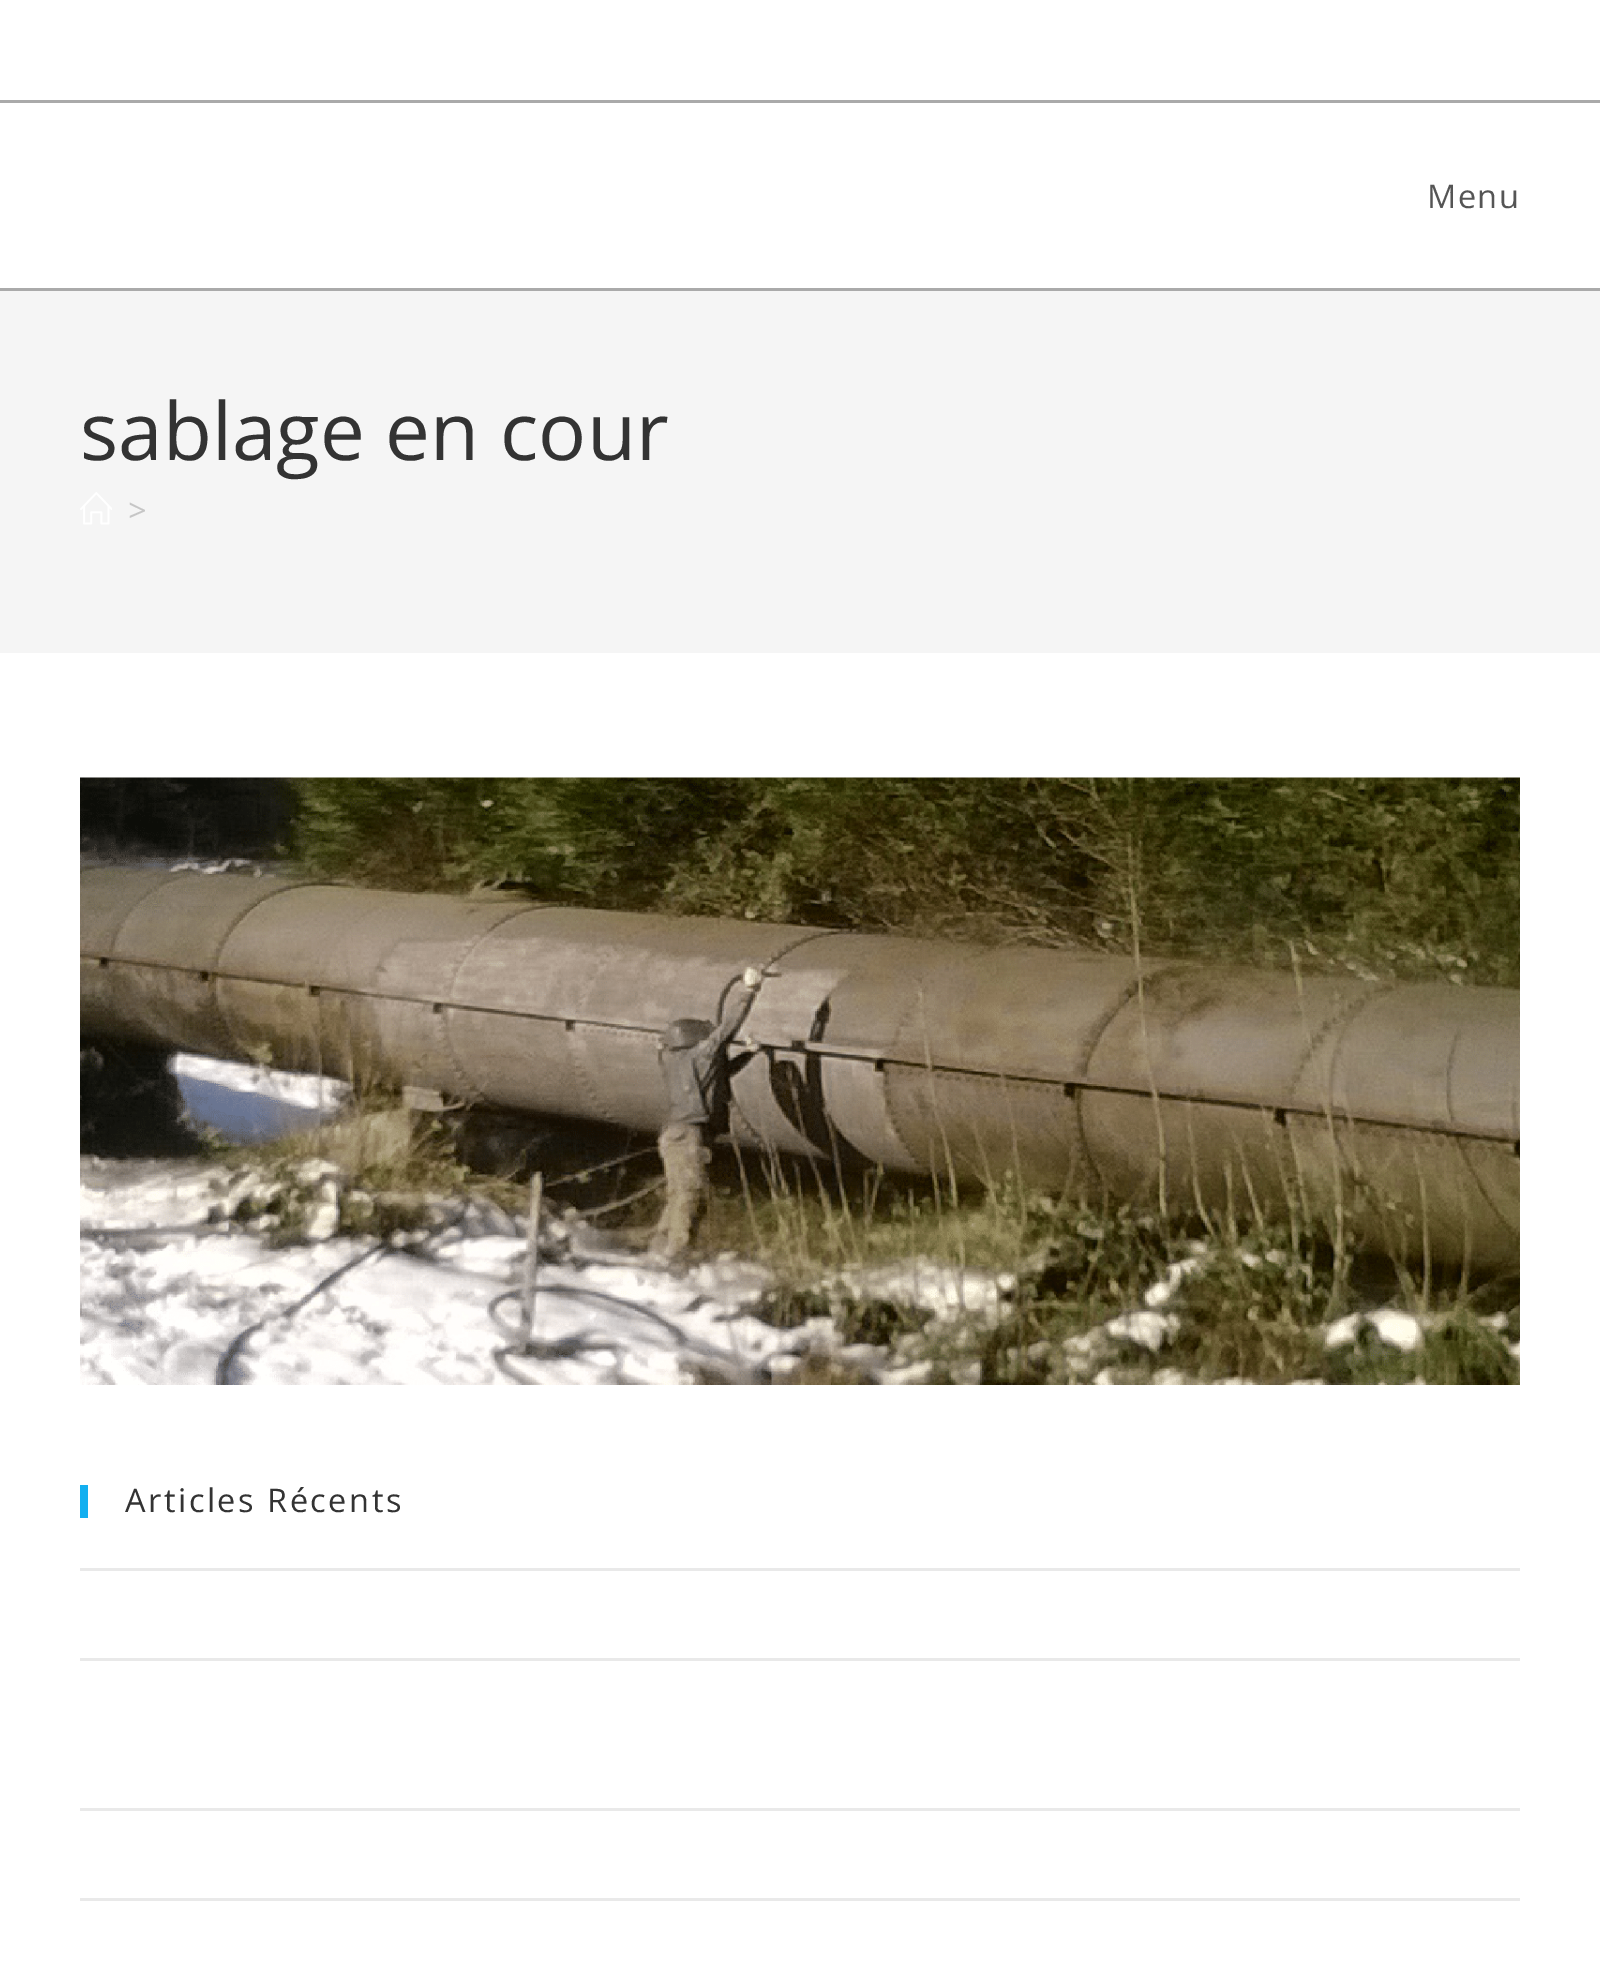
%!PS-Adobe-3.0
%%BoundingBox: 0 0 1600 1983
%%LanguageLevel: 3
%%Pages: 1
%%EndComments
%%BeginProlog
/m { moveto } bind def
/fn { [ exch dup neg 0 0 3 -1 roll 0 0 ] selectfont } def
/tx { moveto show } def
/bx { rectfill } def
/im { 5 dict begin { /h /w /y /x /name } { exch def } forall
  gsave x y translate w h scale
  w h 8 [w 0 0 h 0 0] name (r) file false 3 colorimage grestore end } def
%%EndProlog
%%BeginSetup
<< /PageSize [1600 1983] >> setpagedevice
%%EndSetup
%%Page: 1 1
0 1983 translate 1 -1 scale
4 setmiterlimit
1 setgray
0 0 1600 1983 bx
0.667 setgray
0 100 1600 3 bx
0 288 1600 3 bx
/OpenSans-Regular 32.5 fn
0.333 setgray
1427 208 m 1.5 0 (Menu) ashow
0.961 setgray
0 291 1600 362 bx
/OpenSans-Regular 80 fn
0.2 setgray
(sablage en cour) 80 460 tx
(image0.raw) 80 492 32 33 im
/OpenSans-Regular 32.5 fn
0.776 setgray
(>) 128 522 tx
(image1.raw) 80 777 1440 608 im
0.075 0.686 0.941 setrgbcolor
80 1485 8 33 bx
0.2 setgray
125 1512 m 2.5 0 (Articles Récents) ashow
0.914 setgray
80 1568 1440 3 bx
80 1658 1440 3 bx
80 1808 1440 3 bx
80 1898 1440 3 bx
showpage
%%EOF
